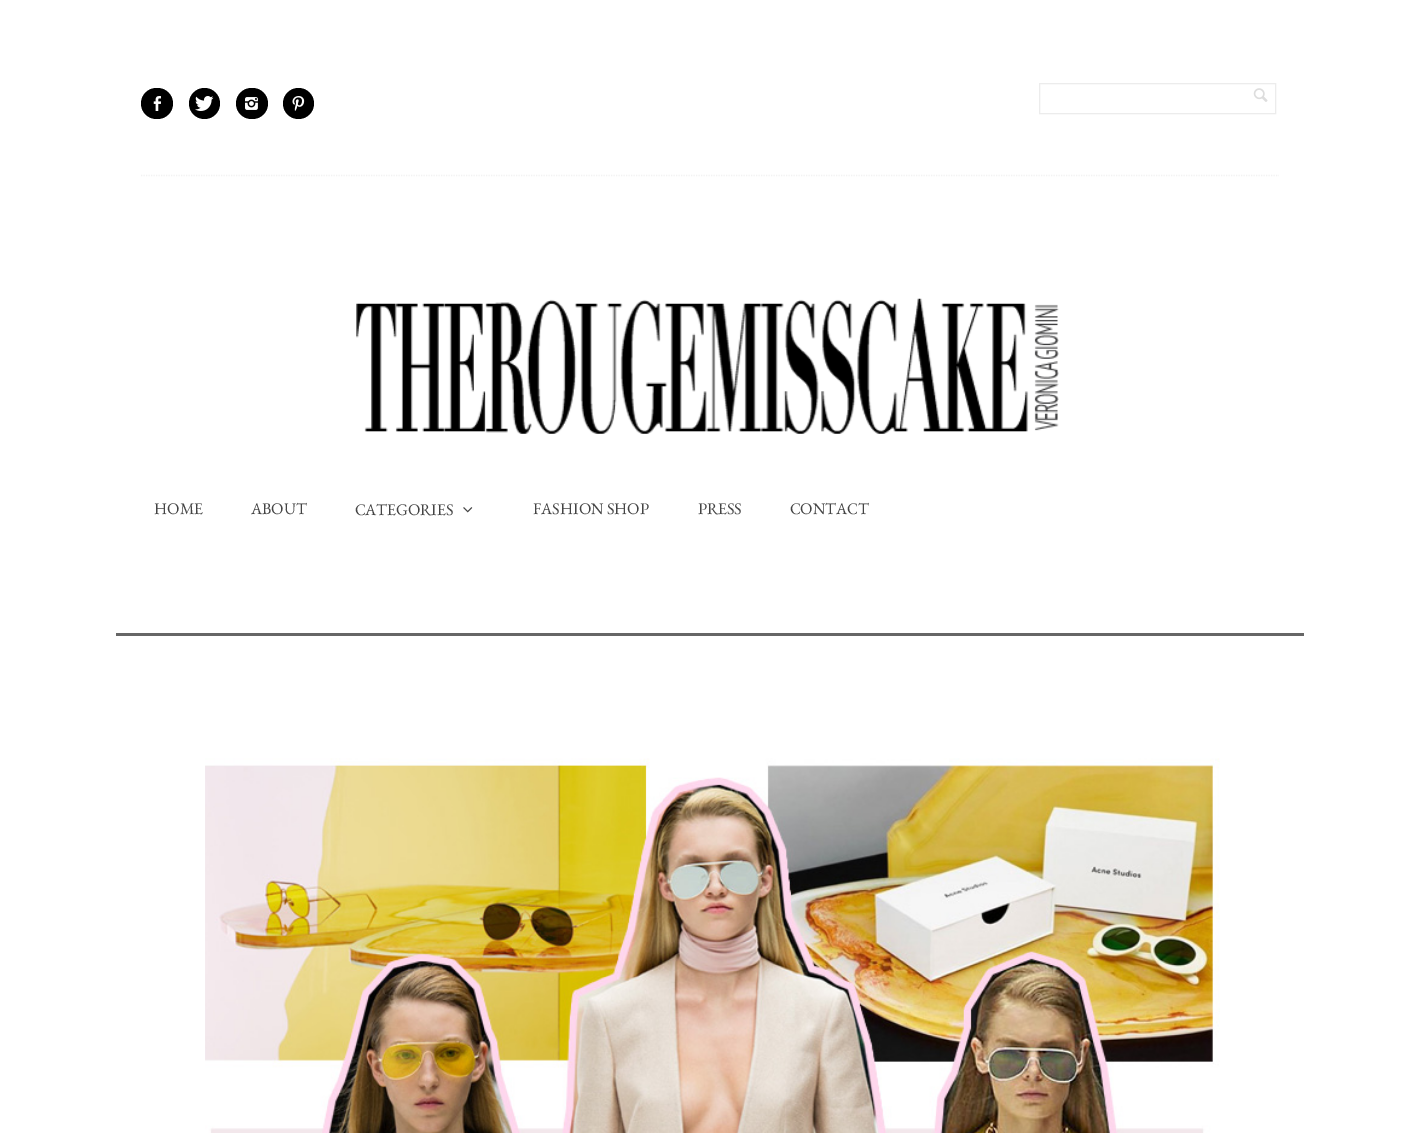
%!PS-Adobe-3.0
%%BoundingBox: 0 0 1420 1133
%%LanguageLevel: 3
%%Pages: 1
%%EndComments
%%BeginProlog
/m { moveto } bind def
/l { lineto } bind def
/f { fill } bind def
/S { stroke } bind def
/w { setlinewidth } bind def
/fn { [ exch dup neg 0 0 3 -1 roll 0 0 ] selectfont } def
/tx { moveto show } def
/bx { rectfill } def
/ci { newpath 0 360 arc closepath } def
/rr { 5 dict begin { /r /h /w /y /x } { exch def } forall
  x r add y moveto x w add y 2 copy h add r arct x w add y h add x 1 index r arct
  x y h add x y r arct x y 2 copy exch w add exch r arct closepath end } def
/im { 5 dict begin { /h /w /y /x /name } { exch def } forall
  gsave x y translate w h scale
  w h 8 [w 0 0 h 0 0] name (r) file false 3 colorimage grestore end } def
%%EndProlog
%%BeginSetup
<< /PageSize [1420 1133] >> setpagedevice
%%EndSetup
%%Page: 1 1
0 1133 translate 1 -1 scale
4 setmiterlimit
1 setgray
0 0 1420 1133 bx
0.4 setgray
116 633 1188 3 bx
0 setgray
141 88 32 31 15.5 rr f
(image0.raw) 153 96 8 15 im
204.5 103.5 15.5 ci f
(image1.raw) 195 96 19 15 im
236 88 32 31 15.5 rr f
(image2.raw) 245 97 13 13 im
298.5 103.5 15.5 ci f
(image3.raw) 292 96 13 15 im
0.925 setgray
1039.5 83.5 236 30 rectstroke
(image4.raw) 1253 88 15 14 im
0.949 setgray
1.2 w
[1.25 1.25] 0 setdash
141 175.5 m 1279 175.5 l S
(image5.raw) 356 298 703 136 im
/EBGaramond-Regular 16.25 fn
0.267 setgray
(HOME) 154 514 tx
(ABOUT) 251 514 tx
(CATEGORIES) 355 515 tx
(image6.raw) 463 507 10 6 im
(FASHION SHOP) 533 514 tx
(PRESS) 698 514 tx
(CONTACT) 790 514 tx
(image7.raw) 205 758 1015 375 im
showpage
%%EOF
